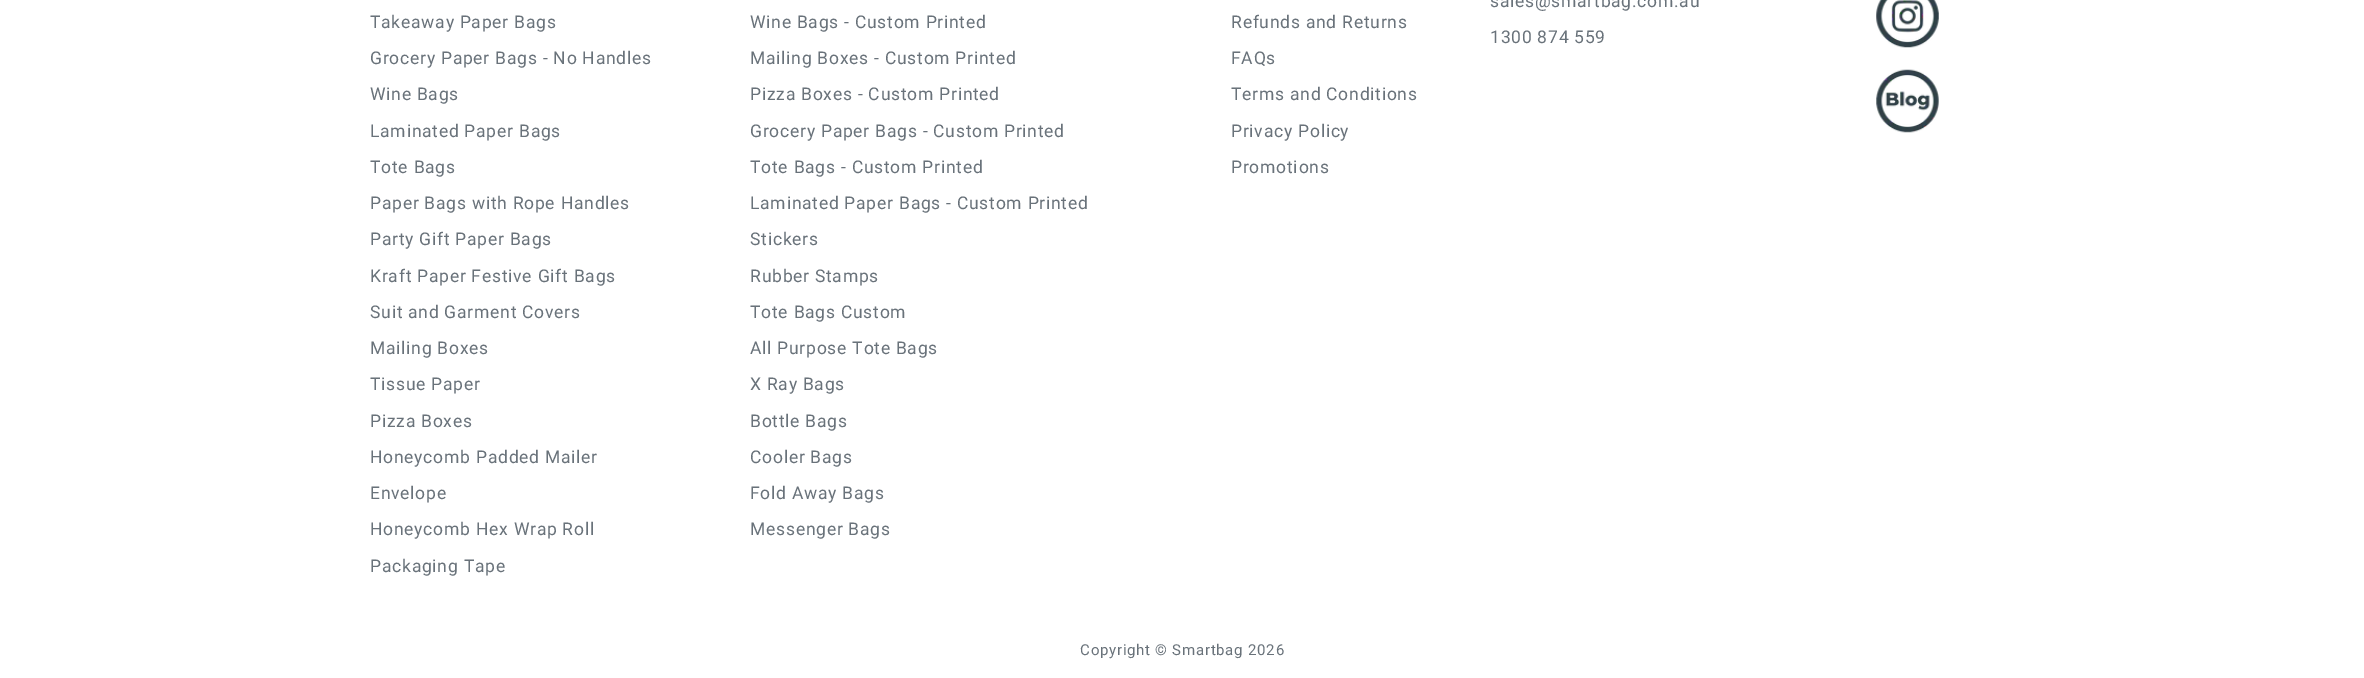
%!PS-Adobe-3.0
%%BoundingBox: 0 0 2364 678
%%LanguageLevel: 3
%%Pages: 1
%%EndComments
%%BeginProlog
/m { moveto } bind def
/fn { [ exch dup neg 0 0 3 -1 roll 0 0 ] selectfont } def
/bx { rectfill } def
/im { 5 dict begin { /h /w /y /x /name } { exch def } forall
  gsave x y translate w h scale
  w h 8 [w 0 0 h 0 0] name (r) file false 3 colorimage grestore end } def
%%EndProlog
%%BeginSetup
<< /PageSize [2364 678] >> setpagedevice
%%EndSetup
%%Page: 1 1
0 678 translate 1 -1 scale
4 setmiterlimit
1 setgray
0 0 2364 678 bx
/Roboto-Regular 17.5 fn
0.412 0.447 0.478 setrgbcolor
370 28 m 0.75 0 (Takeaway Paper Bags) ashow
370 64 m 0.75 0 (Grocery Paper Bags - No Handles) ashow
370 100 m 0.75 0 (Wine Bags) ashow
370 137 m 0.75 0 (Laminated Paper Bags) ashow
370 173 m 0.75 0 (Tote Bags) ashow
370 209 m 0.75 0 (Paper Bags with Rope Handles) ashow
370 245 m 0.75 0 (Party Gift Paper Bags) ashow
370 282 m 0.75 0 (Kraft Paper Festive Gift Bags) ashow
370 318 m 0.75 0 (Suit and Garment Covers) ashow
370 354 m 0.75 0 (Mailing Boxes) ashow
370 390 m 0.75 0 (Tissue Paper) ashow
370 427 m 0.75 0 (Pizza Boxes) ashow
370 463 m 0.75 0 (Honeycomb Padded Mailer) ashow
370 499 m 0.75 0 (Envelope) ashow
370 535 m 0.75 0 (Honeycomb Hex Wrap Roll) ashow
370 572 m 0.75 0 (Packaging Tape) ashow
750 28 m 0.75 0 (Wine Bags - Custom Printed) ashow
750 64 m 0.75 0 (Mailing Boxes - Custom Printed) ashow
750 100 m 0.75 0 (Pizza Boxes - Custom Printed) ashow
750 137 m 0.75 0 (Grocery Paper Bags - Custom Printed) ashow
750 173 m 0.75 0 (Tote Bags - Custom Printed) ashow
750 209 m 0.75 0 (Laminated Paper Bags - Custom Printed) ashow
750 245 m 0.75 0 (Stickers) ashow
750 282 m 0.75 0 (Rubber Stamps) ashow
750 318 m 0.75 0 (Tote Bags Custom) ashow
750 354 m 0.75 0 (All Purpose Tote Bags) ashow
750 390 m 0.75 0 (X Ray Bags) ashow
750 427 m 0.75 0 (Bottle Bags) ashow
750 463 m 0.75 0 (Cooler Bags) ashow
750 499 m 0.75 0 (Fold Away Bags) ashow
750 535 m 0.75 0 (Messenger Bags) ashow
1231 28 m 0.75 0 (Refunds and Returns) ashow
1231 64 m 0.75 0 (FAQs) ashow
1231 100 m 0.75 0 (Terms and Conditions) ashow
1231 137 m 0.75 0 (Privacy Policy) ashow
1231 173 m 0.75 0 (Promotions) ashow
1490 7 m 0.75 0 (sales@smartbag.com.au) ashow
1490 43 m 0.75 0 (1300 874 559) ashow
(image0.raw) 1876 0 63 48 im
(image1.raw) 1876 69 63 64 im
/Roboto-Regular 15 fn
1080 655 m 0.75 0 (Copyright © Smartbag 2026) ashow
showpage
%%EOF
